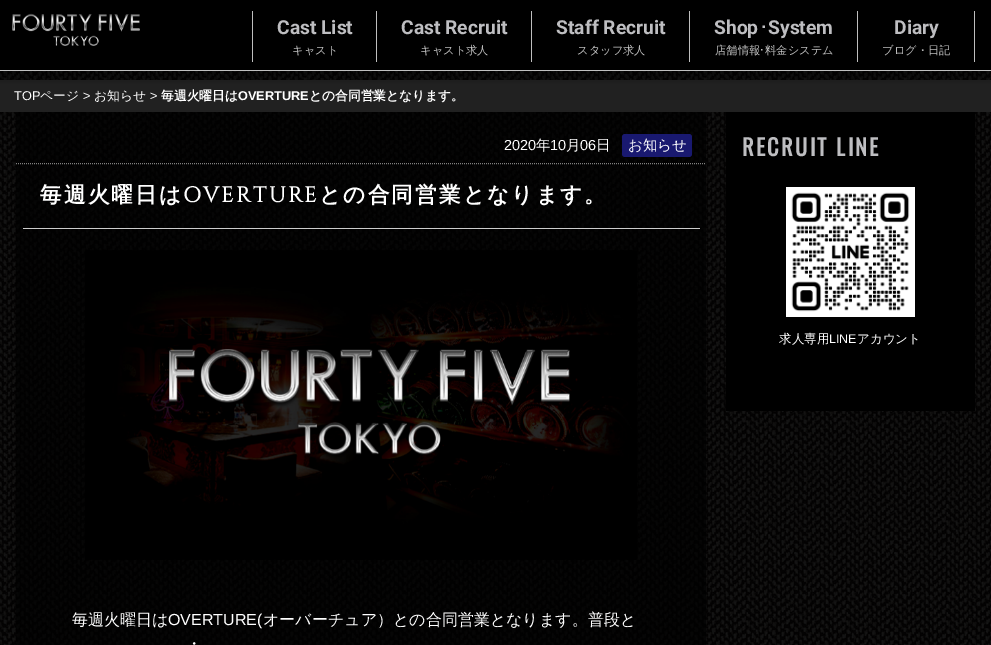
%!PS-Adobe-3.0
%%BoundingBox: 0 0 991 645
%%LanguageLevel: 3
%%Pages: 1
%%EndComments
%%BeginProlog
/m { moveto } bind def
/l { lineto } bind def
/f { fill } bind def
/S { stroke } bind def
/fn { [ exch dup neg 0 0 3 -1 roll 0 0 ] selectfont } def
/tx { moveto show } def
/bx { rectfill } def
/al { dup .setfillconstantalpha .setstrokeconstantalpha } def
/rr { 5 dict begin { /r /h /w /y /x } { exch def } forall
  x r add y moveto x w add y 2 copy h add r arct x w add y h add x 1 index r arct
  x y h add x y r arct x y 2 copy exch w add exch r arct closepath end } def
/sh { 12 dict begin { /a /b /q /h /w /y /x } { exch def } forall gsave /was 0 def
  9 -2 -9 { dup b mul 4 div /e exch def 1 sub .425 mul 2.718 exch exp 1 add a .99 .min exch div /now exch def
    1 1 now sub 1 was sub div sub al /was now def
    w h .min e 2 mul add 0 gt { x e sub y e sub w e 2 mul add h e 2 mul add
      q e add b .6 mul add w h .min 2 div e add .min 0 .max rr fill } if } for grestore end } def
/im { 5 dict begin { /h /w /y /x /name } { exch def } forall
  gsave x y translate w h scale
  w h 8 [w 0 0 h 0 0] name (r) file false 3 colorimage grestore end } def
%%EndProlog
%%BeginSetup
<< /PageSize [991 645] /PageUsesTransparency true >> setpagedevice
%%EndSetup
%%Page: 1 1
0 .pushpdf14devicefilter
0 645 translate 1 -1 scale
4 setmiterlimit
1 setgray
0 0 991 645 bx
(image1.raw) 0 71 991 574 im
0.129 setgray
0 80 991 32 bx
0 setgray
0 10 991 71 0 3 0.2 sh
0 0 991 70 bx
0.753 setgray
0 70 991 1 bx
(image0.raw) 12 13 128 33 im
0.745 setgray
252 11 1 51 bx
/Roboto-Bold 19.25 fn
0.745 0.745 0.757 setrgbcolor
(Cast List) 277 34 tx
/WenQuanYiZenHei-Medium 11.25 fn
0.753 setgray
(キャスト) 292 54 tx
0.745 setgray
376 11 1 51 bx
/Roboto-Bold 19.25 fn
0.745 0.745 0.757 setrgbcolor
(Cast Recruit) 401 34 tx
/WenQuanYiZenHei-Medium 11.25 fn
0.753 setgray
(キャスト求人) 420 54 tx
0.745 setgray
531 11 1 51 bx
/Roboto-Bold 19.25 fn
0.745 0.745 0.757 setrgbcolor
(Staff Recruit) 556 34 tx
/WenQuanYiZenHei-Medium 11.25 fn
0.753 setgray
(スタッフ求人) 577 54 tx
0.745 setgray
689 11 1 51 bx
/Roboto-Bold 19.25 fn
0.745 0.745 0.757 setrgbcolor
(Shop) 714 34 tx
/IPAPGothic-Regular 19.25 fn
(･) 759 34 tx
/Roboto-Bold 19.25 fn
(System) 768 34 tx
/WenQuanYiZenHei-Medium 11.25 fn
0.753 setgray
(店舗情報) 715 54 tx
/IPAPGothic-Regular 11.25 fn
(･) 759 54 tx
/WenQuanYiZenHei-Medium 11.25 fn
(料金システム) 765 54 tx
0.745 setgray
974 11 1 51 bx
857 11 1 51 bx
/Roboto-Bold 19.25 fn
0.745 0.745 0.757 setrgbcolor
(Diary) 894 34 tx
/WenQuanYiZenHei-Medium 11.25 fn
0.753 setgray
(ブログ・日記) 882 54 tx
/LiberationSans-Regular 12.75 fn
1 setgray
(TOP) 14 100 tx
/WenQuanYiZenHei-Medium 12.75 fn
(ページ) 40 100 tx
/LiberationSans-Regular 12.75 fn
(>) 83 100 tx
/WenQuanYiZenHei-Medium 12.75 fn
(お知らせ) 94 100 tx
/LiberationSans-Regular 12.75 fn
(>) 150 100 tx
/WenQuanYiZenHei-Bold 12.75 fn
(毎週火曜日は) 161 100 tx
/LiberationSans-Bold 12.75 fn
(OVERTURE) 238 100 tx
/WenQuanYiZenHei-Bold 12.75 fn
(との合同営業となります。) 309 100 tx
0.7 al
0 setgray
16 112 690 533 bx
0.5 al
1 setgray
[1 1] 0 setdash
16 163.5 m 706 163.5 l S
/LiberationSans-Regular 14.5 fn
1 al
(2020) 504 150 tx
/WenQuanYiZenHei-Medium 14.5 fn
(年) 536 150 tx
/LiberationSans-Regular 14.5 fn
(10) 550 150 tx
/WenQuanYiZenHei-Medium 14.5 fn
(月) 566 150 tx
/LiberationSans-Regular 14.5 fn
(06) 580 150 tx
/WenQuanYiZenHei-Medium 14.5 fn
(日) 596 150 tx
0.098 0.098 0.439 setrgbcolor
622 134 70 23 3 rr f
1 setgray
(お知らせ) 628 150 tx
0.8 al
23 228 677 1 bx
/WenQuanYiZenHei-Bold 21.6 fn
1 al
40 202 m 2.2 0 (毎週火曜日は) ashow
/Cinzel-Bold 21.6 fn
183 202 m 2.2 0 (OVERTURE) ashow
/WenQuanYiZenHei-Bold 21.6 fn
319 202 m 2.2 0 (との合同営業となります。) ashow
(image2.raw) 85 250 552 310 im
/WenQuanYiZenHei-Medium 16 fn
(毎週火曜日は) 72 625 tx
/LiberationSans-Regular 16 fn
(OVERTURE\() 168 625 tx
/WenQuanYiZenHei-Medium 16 fn
(オーバーチュア）との合同営業となります。普段と) 263 625 tx
(・) 186 649 tx
0 setgray
726 112 249 299 bx
/Oswald-Bold 22.5 fn
0.745 0.745 0.757 setrgbcolor
742 156 m 2.25 0 (RECRUIT LINE) ashow
(image3.raw) 786 187 129 130 im
/WenQuanYiZenHei-Medium 12.5 fn
1 setgray
(求人専用) 779 343 tx
/LiberationSans-Regular 12.5 fn
(LINE) 829 343 tx
/WenQuanYiZenHei-Medium 12.5 fn
(アカウント) 857 343 tx
.poppdf14devicefilter showpage
%%EOF
